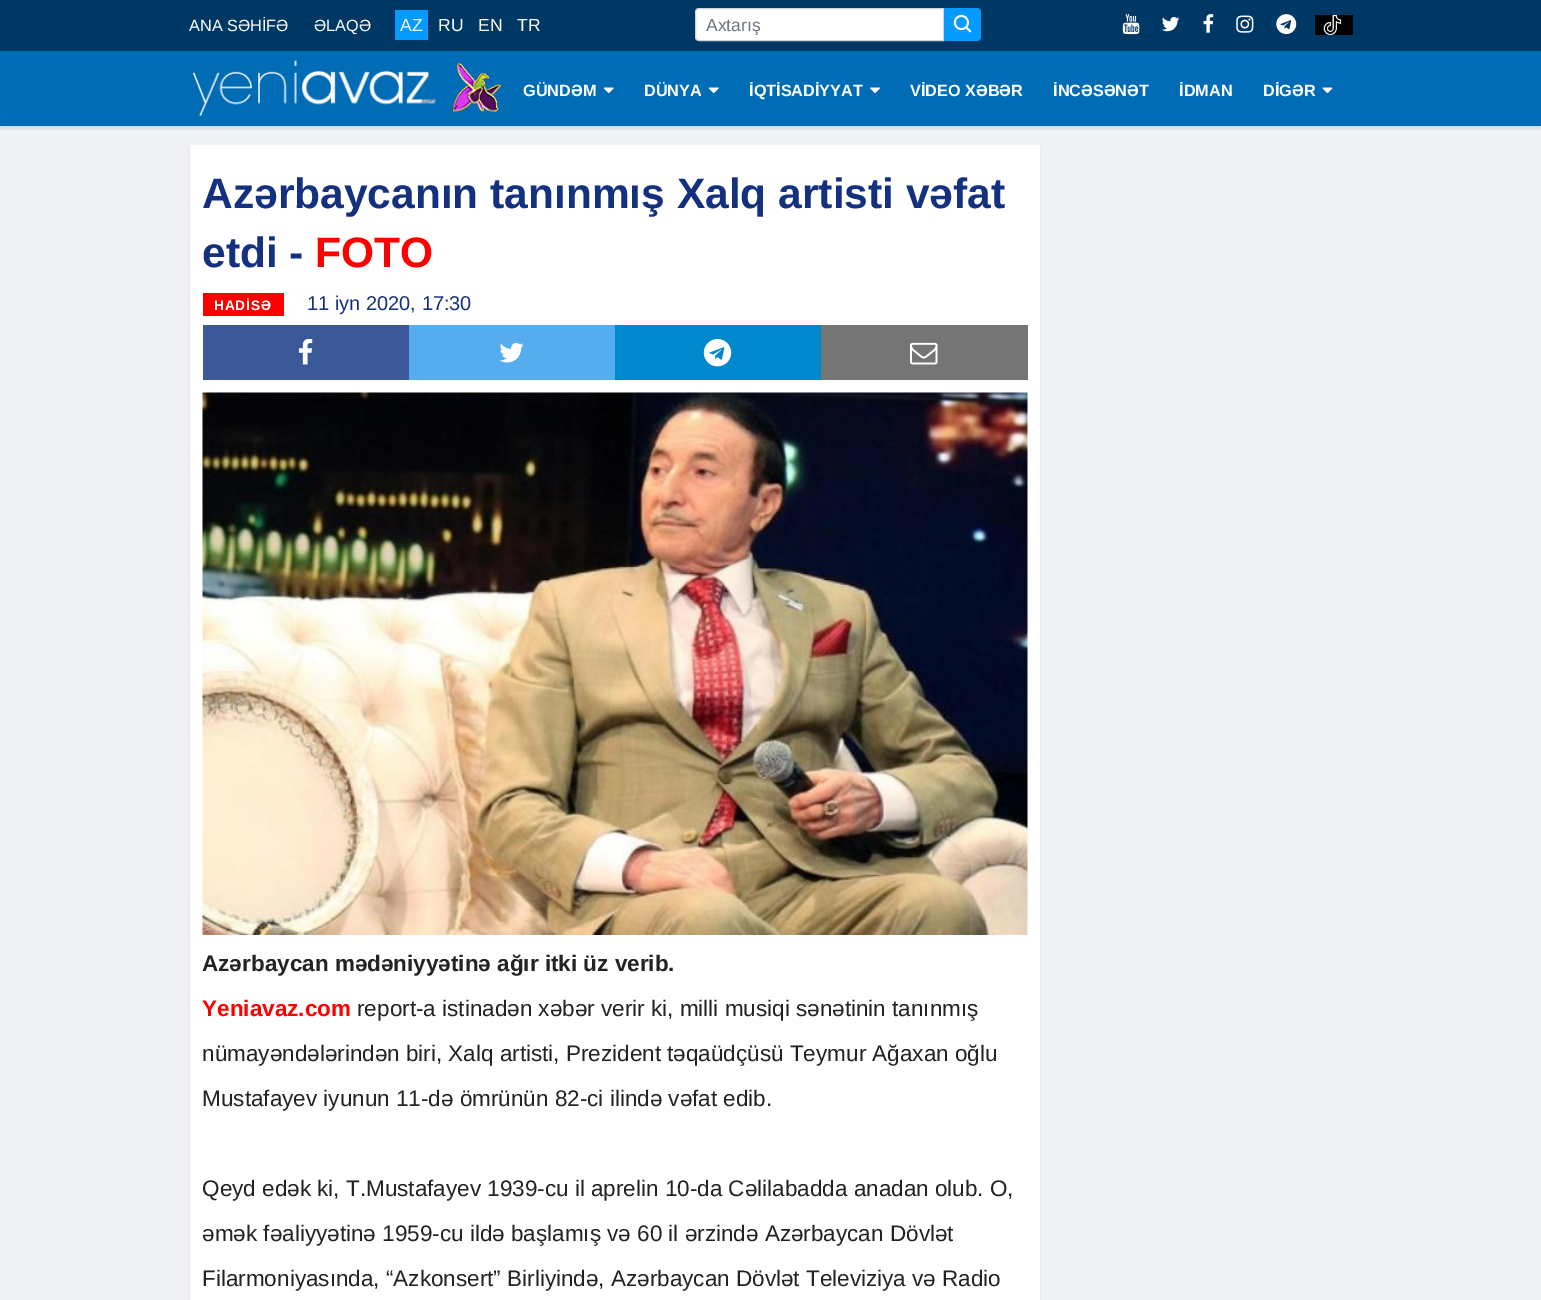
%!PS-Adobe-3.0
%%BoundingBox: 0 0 1541 1300
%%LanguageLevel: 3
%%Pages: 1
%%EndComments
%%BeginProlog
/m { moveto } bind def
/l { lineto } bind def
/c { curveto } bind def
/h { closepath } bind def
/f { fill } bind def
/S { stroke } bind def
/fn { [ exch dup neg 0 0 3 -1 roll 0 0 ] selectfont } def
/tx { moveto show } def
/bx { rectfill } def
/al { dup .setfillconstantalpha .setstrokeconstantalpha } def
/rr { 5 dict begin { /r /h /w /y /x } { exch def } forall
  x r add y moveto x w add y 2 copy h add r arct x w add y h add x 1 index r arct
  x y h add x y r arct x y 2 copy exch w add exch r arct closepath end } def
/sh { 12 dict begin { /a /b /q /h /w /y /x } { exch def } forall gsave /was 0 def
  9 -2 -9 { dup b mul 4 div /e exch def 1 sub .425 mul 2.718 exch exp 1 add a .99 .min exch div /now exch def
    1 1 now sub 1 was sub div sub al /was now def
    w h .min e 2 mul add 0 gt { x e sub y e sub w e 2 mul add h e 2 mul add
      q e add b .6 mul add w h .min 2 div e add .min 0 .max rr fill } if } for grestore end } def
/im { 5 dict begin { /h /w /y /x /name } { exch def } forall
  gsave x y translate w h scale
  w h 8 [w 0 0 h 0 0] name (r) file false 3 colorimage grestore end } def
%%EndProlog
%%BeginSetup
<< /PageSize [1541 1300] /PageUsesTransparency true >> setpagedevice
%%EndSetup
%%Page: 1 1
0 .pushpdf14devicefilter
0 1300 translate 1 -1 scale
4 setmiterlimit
0.941 0.945 0.957 setrgbcolor
0 0 1541 1300 bx
0 0.22 0.396 setrgbcolor
0 0 1541 51 bx
/LiberationSans-Regular 16.25 fn
1 setgray
(ANA SƏHİFƏ) 189 31 tx
(ƏLAQƏ) 314 31 tx
0.016 0.604 1 setrgbcolor
395 10 33 30 bx
/LiberationSans-Regular 17.5 fn
1 setgray
(AZ) 400 31 tx
(RU) 438 31 tx
(EN) 478 31 tx
(TR) 517 31 tx
698.5 9 m 943 9 l 943 40 l 698.5 40 l 697 40 696 39 696 37.5 c 696 11.5 l 696 10 697 9 698.5 9 c h f
0.808 0.831 0.855 setrgbcolor
699 8.5 m 943.5 8.5 l 943.5 40.5 l 699 40.5 l 697 40.5 695.5 39 695.5 37 c 695.5 12 l 695.5 10 697 8.5 699 8.5 c h S
0.424 0.459 0.49 setrgbcolor
(Axtarış) 706 31 tx
0.016 0.604 1 setrgbcolor
944 8 m 977 8 l 979 8 981 10 981 12 c 981 37 l 981 39 979 41 977 41 c 944 41 l h f
(image0.raw) 953 14 19 19 im
(image1.raw) 1122 14 18 21 im
(image2.raw) 1203 14 11 19 im
(image3.raw) 1236 15 18 18 im
(image4.raw) 1276 14 21 21 im
0 setgray
1315 15 38 20 bx
(image5.raw) 1162 17 18 15 im
(image6.raw) 1323 15 19 20 im
0 54 1541 75 0 1 0.08 sh
0 0.424 0.71 setrgbcolor
0 51 1541 75 bx
(image7.raw) 192 60 244 57 im
(image8.raw) 452 62 50 51 im
/LiberationSans-Bold 16.25 fn
1 setgray
(GÜNDƏM) 523 96 tx
(image9.raw) 603 87 11 7 im
(DÜNYA) 644 96 tx
(image9.raw) 708 87 11 7 im
(İQTİSADİYYAT) 749 96 tx
(image10.raw) 870 87 10 6 im
(VİDEO XƏBƏR) 910 96 tx
(İNCƏSƏNƏT) 1053 96 tx
(İDMAN) 1179 96 tx
(DİGƏR) 1263 96 tx
(image11.raw) 1322 87 11 7 im
0 setgray
190 148 850 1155 0 1 0.08 sh
1 setgray
190 145 850 1155 bx
/LiberationSans-Bold 42.5 fn
0.075 0.192 0.498 setrgbcolor
(Azərbaycanın tanınmış Xalq artisti vəfat) 202 208 tx
(etdi -) 202 267 tx
1 0 0 setrgbcolor
(FOTO) 315 267 tx
203 293 81 23 bx
/LiberationSans-Bold 13.75 fn
1 setgray
214 310 m 0.75 0 (HADİSƏ) ashow
/LiberationSans-Regular 20 fn
0.075 0.192 0.498 setrgbcolor
(11 iyn 2020, 17:30) 307 310 tx
0.231 0.349 0.6 setrgbcolor
203 325 206 55 bx
(image12.raw) 298 338 15 27 im
0.333 0.675 0.933 setrgbcolor
409 325 206 55 bx
(image13.raw) 499 342 25 21 im
0 0.533 0.8 setrgbcolor
615 325 206 55 bx
(image14.raw) 703 338 29 29 im
0.459 setgray
821 325 207 55 bx
(image15.raw) 910 342 28 23 im
(image16.raw) 202 392 826 543 im
/LiberationSans-Bold 22.5 fn
0.137 setgray
(Azərbaycan mədəniyyətinə ağır itki üz verib.) 202 971 tx
1 0 0 setrgbcolor
(Yeniavaz.com) 202 1016 tx
/LiberationSans-Regular 22.5 fn
0.137 setgray
(report-a istinadən xəbər verir ki, milli musiqi sənətinin tanınmış) 357 1016 tx
(nümayəndələrindən biri, Xalq artisti, Prezident təqaüdçüsü Teymur Ağaxan oğlu) 202 1061 tx
(Mustafayev iyunun 11-də ömrünün 82-ci ilində vəfat edib.) 202 1106 tx
(Qeyd edək ki, T.Mustafayev 1939-cu il aprelin 10-da Cəlilabadda anadan olub. O,) 202 1196 tx
(əmək fəaliyyətinə 1959-cu ildə başlamış və 60 il ərzində Azərbaycan Dövlət) 202 1241 tx
(Filarmoniyasında, “Azkonsert” Birliyində, Azərbaycan Dövlət Televiziya və Radio) 202 1286 tx
.poppdf14devicefilter showpage
%%EOF
